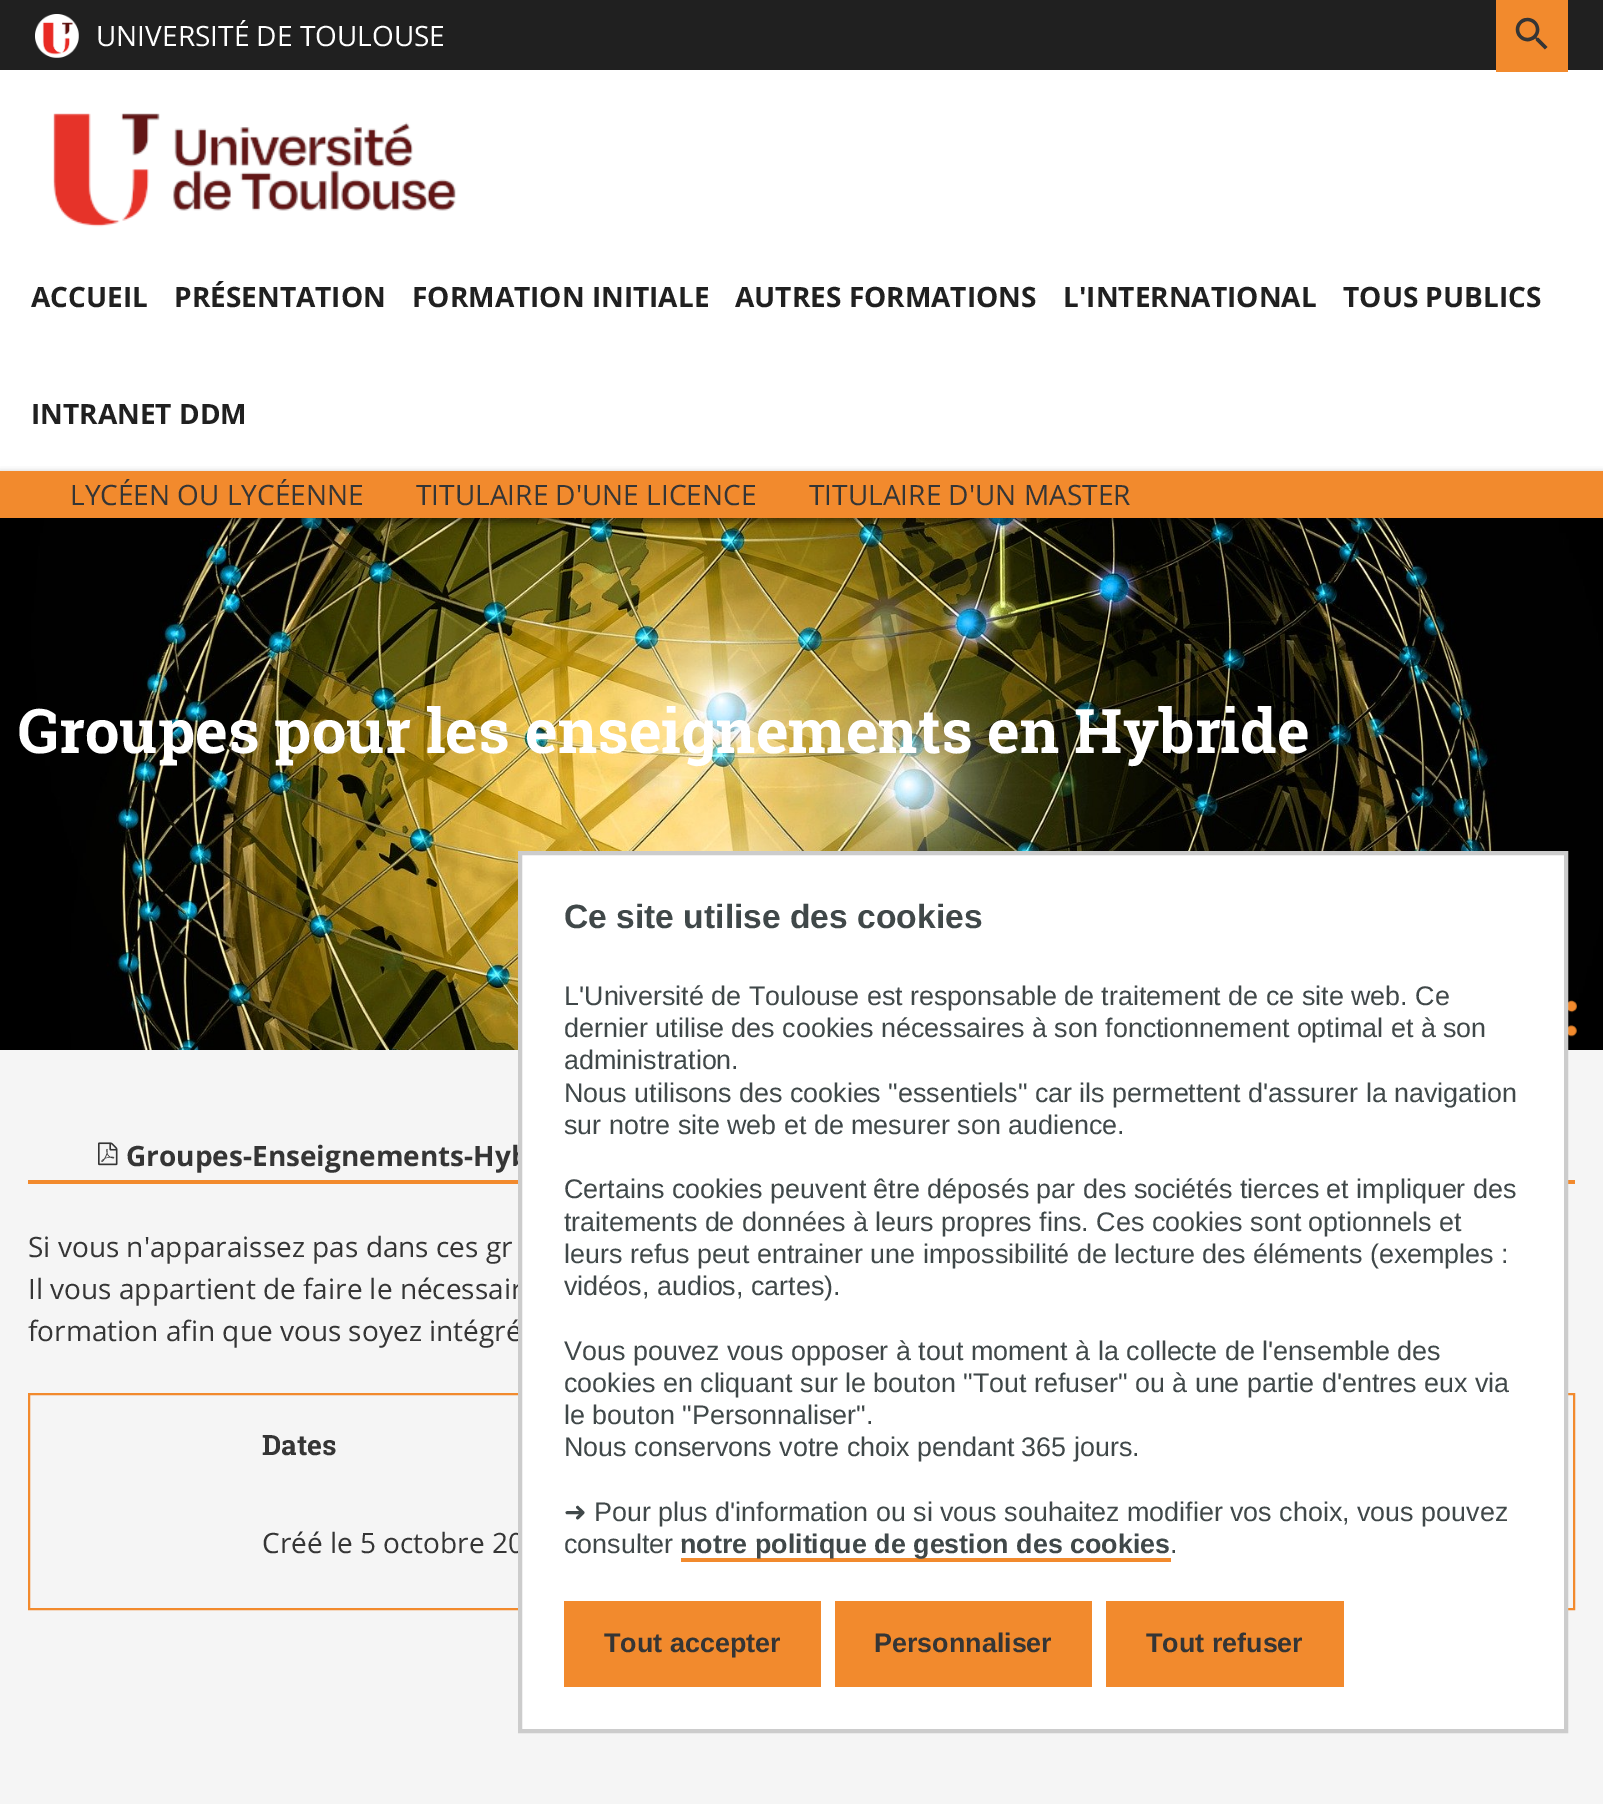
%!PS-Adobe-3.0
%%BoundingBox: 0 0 1603 1804
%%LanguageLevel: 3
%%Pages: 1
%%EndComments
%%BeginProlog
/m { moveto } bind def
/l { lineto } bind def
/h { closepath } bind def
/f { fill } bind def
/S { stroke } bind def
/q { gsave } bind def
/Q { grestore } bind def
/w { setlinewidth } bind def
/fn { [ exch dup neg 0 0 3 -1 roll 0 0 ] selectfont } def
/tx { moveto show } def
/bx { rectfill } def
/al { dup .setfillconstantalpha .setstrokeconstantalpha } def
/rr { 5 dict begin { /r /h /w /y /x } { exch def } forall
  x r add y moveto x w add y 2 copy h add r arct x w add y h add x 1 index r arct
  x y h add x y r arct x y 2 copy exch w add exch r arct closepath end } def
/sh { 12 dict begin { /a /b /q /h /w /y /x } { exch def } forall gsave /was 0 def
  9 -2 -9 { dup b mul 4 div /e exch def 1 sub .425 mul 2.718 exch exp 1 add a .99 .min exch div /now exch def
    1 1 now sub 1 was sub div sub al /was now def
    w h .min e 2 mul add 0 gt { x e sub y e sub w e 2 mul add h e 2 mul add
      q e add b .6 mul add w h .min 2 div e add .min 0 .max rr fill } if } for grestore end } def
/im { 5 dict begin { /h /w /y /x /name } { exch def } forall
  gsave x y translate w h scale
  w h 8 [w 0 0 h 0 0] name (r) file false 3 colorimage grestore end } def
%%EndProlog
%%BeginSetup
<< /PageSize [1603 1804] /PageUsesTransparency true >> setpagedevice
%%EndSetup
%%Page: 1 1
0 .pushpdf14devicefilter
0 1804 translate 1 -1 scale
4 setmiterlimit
0.961 setgray
0 0 1603 1804 bx
1 setgray
0 70 1603 401 bx
0.125 setgray
0 0 1603 70 bx
(image0.raw) 35 14 44 44 im
/OpenSans-Regular 28 fn
1 setgray
(UNIVERSITÉ DE TOULOUSE) 96 46 tx
0.949 0.541 0.176 setrgbcolor
1496 0 72 72 bx
(image1.raw) 1515 17 33 33 im
(image2.raw) 53 113 403 114 im
/OpenSans-Bold 28 fn
0.125 setgray
(ACCUEIL) 31 307 tx
(PRÉSENTATION) 174 307 tx
(FORMATION INITIALE) 412 307 tx
(AUTRES FORMATIONS) 735 307 tx
(L'INTERNATIONAL) 1063 307 tx
(TOUS PUBLICS) 1343 307 tx
(INTRANET DDM) 31 424 tx
(image3.raw) 0 518 1603 532 im
0 setgray
0 474 1603 48 0 3.5 0.5 sh
0.949 0.541 0.176 setrgbcolor
0 471 1603 47 bx
/OpenSans-Regular 28 fn
0.208 setgray
(LYCÉEN OU LYCÉENNE) 70 505 tx
(TITULAIRE D'UNE LICENCE) 416 505 tx
(TITULAIRE D'UN MASTER) 809 505 tx
/RobotoSlab-Bold 61.6 fn
1 setgray
(Groupes pour les enseignements en Hybride) 18 753 tx
(image4.raw) 1568 1000 9 37 im
0.949 0.541 0.176 setrgbcolor
28 1180 1547 4 bx
(image5.raw) 98 1142 20 24 im
/OpenSans-Bold 28 fn
0.208 setgray
(Groupes-Enseignements-Hyb) 126 1166 tx
/OpenSans-Regular 28 fn
(Si vous n'apparaissez pas dans ces gr) 28 1257 tx
(Il vous appartient de faire le nécessair) 28 1299 tx
(formation afin que vous soyez intégré) 28 1341 tx
0.949 0.541 0.176 setrgbcolor
2 w
29 1394 1545 215 rectstroke
/RobotoSlab-Bold 28 fn
0.208 setgray
(Dates) 262 1455 tx
/OpenSans-Regular 28 fn
(Créé le 5 octobre 20) 262 1553 tx
1 setgray
520 853 m 1566 853 l 1566 1731 l 520 1731 l h q f Q
0.8 setgray
4 w
S
/LiberationSans-Bold 33.6 fn
0.251 0.282 0.286 setrgbcolor
(Ce site utilise des cookies) 564 928 tx
/LiberationSans-Regular 26.9 fn
(L'Université de Toulouse est responsable de traitement de ce site web. Ce) 564 1005 tx
(dernier utilise des cookies nécessaires à son fonctionnement optimal et à son) 564 1037 tx
(administration.) 564 1069 tx
(Nous utilisons des cookies "essentiels" car ils permettent d'assurer la navigation) 564 1102 tx
(sur notre site web et de mesurer son audience.) 564 1134 tx
(Certains cookies peuvent être déposés par des sociétés tierces et impliquer des) 564 1198 tx
(traitements de données à leurs propres fins. Ces cookies sont optionnels et) 564 1231 tx
(leurs refus peut entrainer une impossibilité de lecture des éléments \(exemples :) 564 1263 tx
(vidéos, audios, cartes\).) 564 1295 tx
(Vous pouvez vous opposer à tout moment à la collecte de l'ensemble des) 564 1360 tx
(cookies en cliquant sur le bouton "Tout refuser" ou à une partie d'entres eux via) 564 1392 tx
(le bouton "Personnaliser".) 564 1424 tx
(Nous conservons votre choix pendant 365 jours.) 564 1456 tx
/DejaVuSans-Regular 26.9 fn
(➜) 564 1521 tx
/LiberationSans-Regular 26.9 fn
(Pour plus d'information ou si vous souhaitez modifier vos choix, vous pouvez) 594 1521 tx
(consulter) 564 1553 tx
0.949 0.541 0.176 setrgbcolor
681 1558 490 4 bx
/LiberationSans-Bold 26.9 fn
0.251 0.282 0.286 setrgbcolor
(notre politique de gestion des cookies) 680 1553 tx
/LiberationSans-Regular 26.9 fn
(.) 1170 1553 tx
0.949 0.541 0.176 setrgbcolor
564 1601 257 86 bx
/LiberationSans-Bold 26.9 fn
0.208 setgray
(Tout accepter) 604 1652 tx
0.949 0.541 0.176 setrgbcolor
835 1601 257 86 bx
0.208 setgray
(Personnaliser) 874 1652 tx
0.949 0.541 0.176 setrgbcolor
1106 1601 238 86 bx
0.208 setgray
(Tout refuser) 1146 1652 tx
.poppdf14devicefilter showpage
%%EOF
